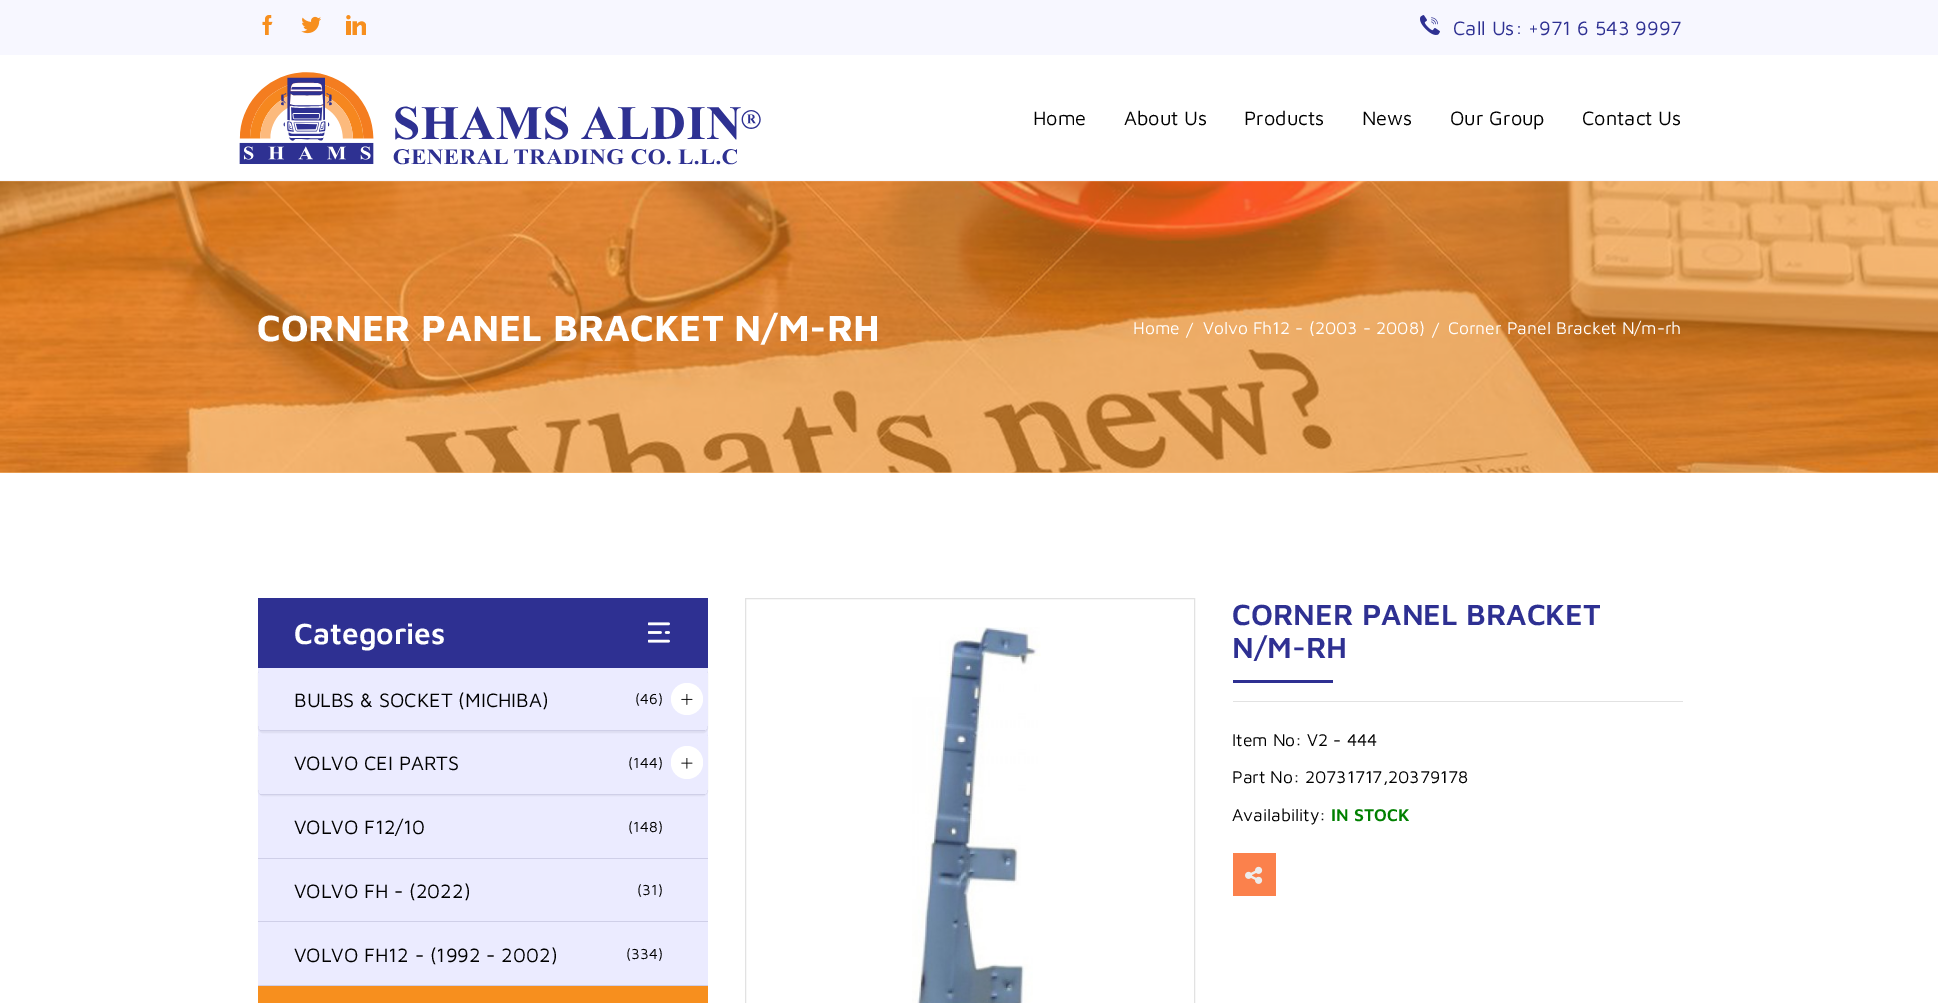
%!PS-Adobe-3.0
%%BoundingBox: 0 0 1938 1003
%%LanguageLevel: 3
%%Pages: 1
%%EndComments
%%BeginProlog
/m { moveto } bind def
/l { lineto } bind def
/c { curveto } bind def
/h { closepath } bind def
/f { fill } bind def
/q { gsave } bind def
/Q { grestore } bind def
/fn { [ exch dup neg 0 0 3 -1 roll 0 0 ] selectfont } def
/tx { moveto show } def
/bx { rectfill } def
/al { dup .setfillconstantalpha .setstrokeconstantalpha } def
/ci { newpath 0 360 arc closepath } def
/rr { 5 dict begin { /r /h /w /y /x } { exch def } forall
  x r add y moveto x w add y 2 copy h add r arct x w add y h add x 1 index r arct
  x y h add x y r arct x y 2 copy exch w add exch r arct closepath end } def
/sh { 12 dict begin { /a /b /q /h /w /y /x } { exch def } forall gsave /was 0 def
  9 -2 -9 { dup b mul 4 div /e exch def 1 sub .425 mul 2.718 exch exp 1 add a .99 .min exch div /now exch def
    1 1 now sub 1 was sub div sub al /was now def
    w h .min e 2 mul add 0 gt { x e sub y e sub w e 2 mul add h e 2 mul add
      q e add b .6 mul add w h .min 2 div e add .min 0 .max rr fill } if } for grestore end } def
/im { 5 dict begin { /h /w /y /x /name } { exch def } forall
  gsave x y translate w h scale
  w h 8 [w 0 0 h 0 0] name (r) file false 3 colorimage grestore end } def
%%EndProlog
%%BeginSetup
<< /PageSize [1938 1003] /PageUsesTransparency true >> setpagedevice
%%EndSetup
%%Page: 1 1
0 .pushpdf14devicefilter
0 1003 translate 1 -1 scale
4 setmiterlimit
1 setgray
0 0 1938 1003 bx
0.98 0.737 0.471 setrgbcolor
0 181 1938 292 bx
0.969 0.969 1 setrgbcolor
0 0 1938 55 bx
(image0.raw) 262 15 11 20 im
(image1.raw) 301 16 20 18 im
(image2.raw) 346 15 20 20 im
(image3.raw) 1420 15 20 20 im
/MavenPro-Regular 20 fn
0.18 0.188 0.573 setrgbcolor
(Call Us: +971 6 543 9997) 1453 35 tx
0.969 0.969 1 setrgbcolor
0 180 1938 1 bx
(image4.raw) 239 72 522 93 im
0 setgray
(Home) 1033 125 tx
(About Us) 1124 125 tx
(Products) 1244 125 tx
(News) 1362 125 tx
(Our Group) 1450 125 tx
(Contact Us) 1582 125 tx
(image5.raw) 0 181 1938 292 im
/MavenPro-Bold 37.5 fn
1 setgray
(CORNER PANEL BRACKET N/M-RH) 257 341 tx
/MavenPro-Regular 17.5 fn
(Home) 1133 334 tx
(/) 1186 336 tx
(Volvo Fh12 - \(2003 - 2008\)) 1203 334 tx
(/) 1432 336 tx
(Corner Panel Bracket N/m-rh) 1448 334 tx
0.922 0.922 1 setrgbcolor
258 668 450 317 bx
0.18 0.188 0.573 setrgbcolor
258 598 450 70 bx
/MavenPro-SemiBold 30 fn
1 setgray
(Categories) 294 644 tx
(image6.raw) 648 622 22 21 im
q
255 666 m 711 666 l 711 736 l 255 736 l h 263 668 m 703 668 l 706 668 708 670 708 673 c 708 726 l 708 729 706 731 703 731 c 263 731 l 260 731 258 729 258 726 c 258 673 l 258 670 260 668 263 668 c h eoclip newpath
0 setgray
258 669 450 64 5 0.5 0.05 sh
Q
0.812 0.812 0.91 setrgbcolor
260 730 445 1 bx
/MavenPro-Regular 20 fn
0 setgray
(BULBS & SOCKET \(MICHIBA\)) 294 707 tx
/MavenPro-Regular 15 fn
(\(46\)) 635 704 tx
1 setgray
687 699 16 ci f
(image7.raw) 681 694 12 11 im
q
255 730 m 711 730 l 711 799 l 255 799 l h 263 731 m 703 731 l 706 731 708 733 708 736 c 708 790 l 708 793 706 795 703 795 c 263 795 l 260 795 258 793 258 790 c 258 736 l 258 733 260 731 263 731 c h eoclip newpath
0 setgray
258 733 450 63 5 0.5 0.05 sh
Q
0.812 0.812 0.91 setrgbcolor
260 794 445 1 bx
/MavenPro-Regular 20 fn
0 setgray
(VOLVO CEI PARTS) 294 770 tx
/MavenPro-Regular 15 fn
(\(144\)) 628 768 tx
1 setgray
671 746 32 33 16 rr f
(image8.raw) 681 758 12 11 im
0.812 0.812 0.91 setrgbcolor
258 858 450 1 bx
/MavenPro-Regular 20 fn
0 setgray
(VOLVO F12/10) 294 834 tx
/MavenPro-Regular 15 fn
(\(148\)) 628 832 tx
0.812 0.812 0.91 setrgbcolor
258 921 450 1 bx
/MavenPro-Regular 20 fn
0 setgray
(VOLVO FH - \(2022\)) 294 898 tx
/MavenPro-Regular 15 fn
(\(31\)) 637 895 tx
0.812 0.812 0.91 setrgbcolor
258 985 450 1 bx
/MavenPro-Regular 20 fn
0 setgray
(VOLVO FH12 - \(1992 - 2002\)) 294 962 tx
/MavenPro-Regular 15 fn
(\(334\)) 626 959 tx
0.969 0.561 0.118 setrgbcolor
258 986 450 17 bx
0.886 setgray
745.5 598.5 449 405 rectstroke
(image9.raw) 912 627 129 376 im
/MavenPro-SemiBold 30 fn
0.18 0.188 0.573 setrgbcolor
(CORNER PANEL BRACKET) 1232 625 tx
(N/M-RH) 1232 658 tx
1233 680 100 3 bx
0.886 setgray
1233 701 450 1 bx
/MavenPro-Regular 17.5 fn
0 setgray
(Item No: V2 - 444) 1232 746 tx
(Part No: 20731717,20379178) 1232 783 tx
(Availability:) 1232 821 tx
/MavenPro-SemiBold 17.5 fn
0 0.502 0 setrgbcolor
(IN STOCK) 1331 821 tx
0.984 0.506 0.298 setrgbcolor
1233 853 43 43 bx
(image10.raw) 1245 866 18 18 im
.poppdf14devicefilter showpage
%%EOF
